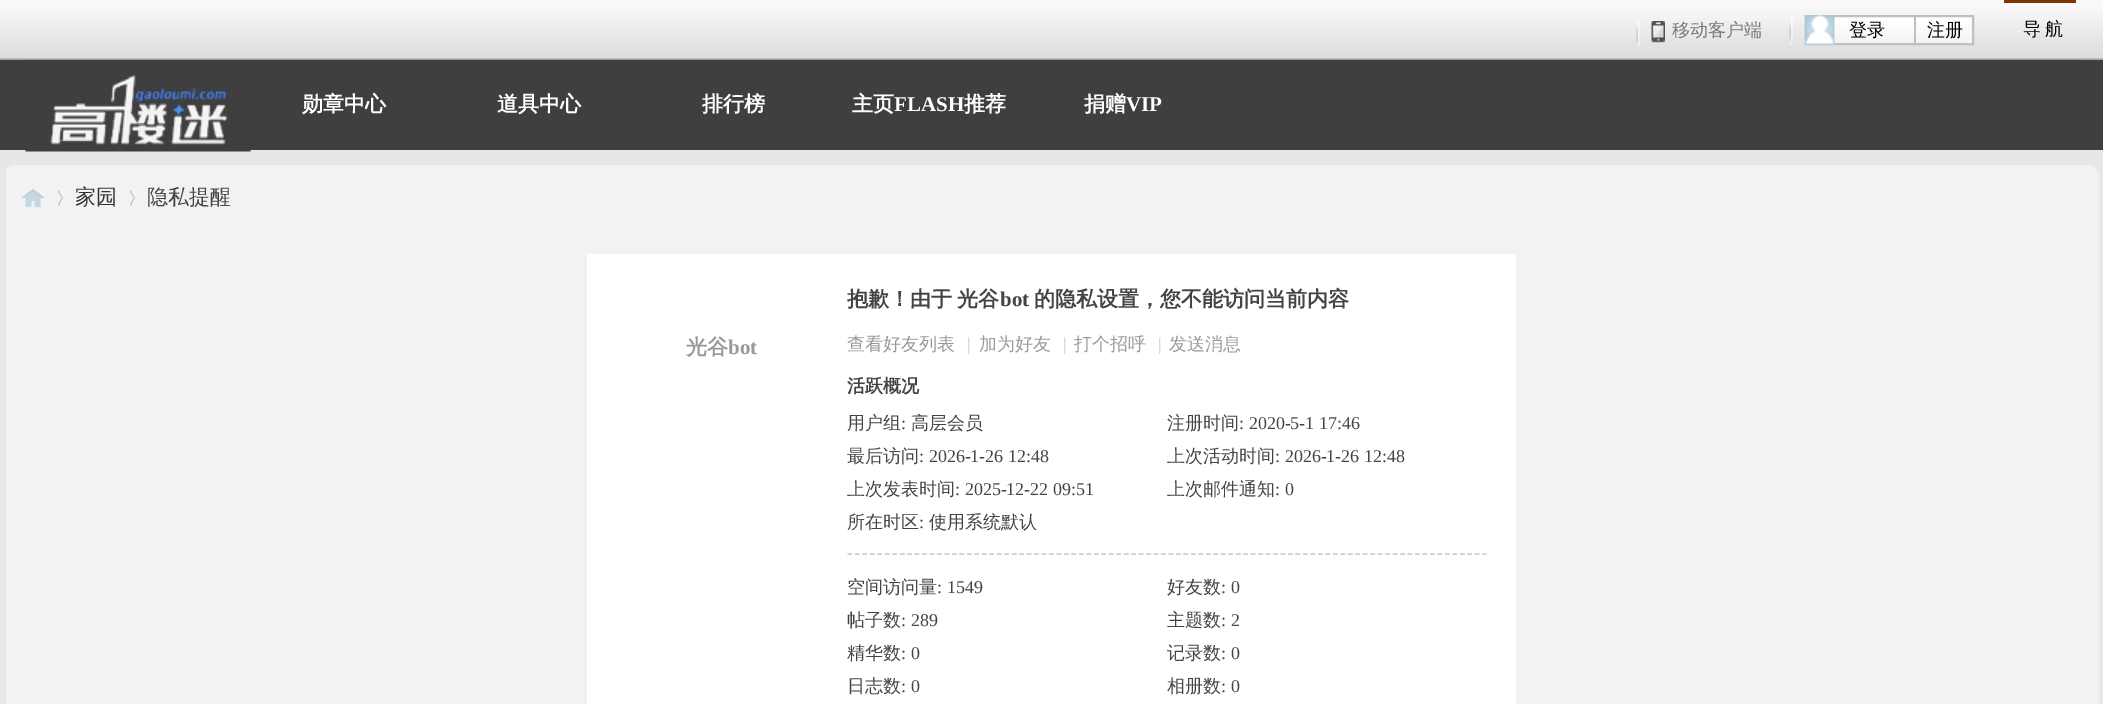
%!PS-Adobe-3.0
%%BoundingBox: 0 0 2103 704
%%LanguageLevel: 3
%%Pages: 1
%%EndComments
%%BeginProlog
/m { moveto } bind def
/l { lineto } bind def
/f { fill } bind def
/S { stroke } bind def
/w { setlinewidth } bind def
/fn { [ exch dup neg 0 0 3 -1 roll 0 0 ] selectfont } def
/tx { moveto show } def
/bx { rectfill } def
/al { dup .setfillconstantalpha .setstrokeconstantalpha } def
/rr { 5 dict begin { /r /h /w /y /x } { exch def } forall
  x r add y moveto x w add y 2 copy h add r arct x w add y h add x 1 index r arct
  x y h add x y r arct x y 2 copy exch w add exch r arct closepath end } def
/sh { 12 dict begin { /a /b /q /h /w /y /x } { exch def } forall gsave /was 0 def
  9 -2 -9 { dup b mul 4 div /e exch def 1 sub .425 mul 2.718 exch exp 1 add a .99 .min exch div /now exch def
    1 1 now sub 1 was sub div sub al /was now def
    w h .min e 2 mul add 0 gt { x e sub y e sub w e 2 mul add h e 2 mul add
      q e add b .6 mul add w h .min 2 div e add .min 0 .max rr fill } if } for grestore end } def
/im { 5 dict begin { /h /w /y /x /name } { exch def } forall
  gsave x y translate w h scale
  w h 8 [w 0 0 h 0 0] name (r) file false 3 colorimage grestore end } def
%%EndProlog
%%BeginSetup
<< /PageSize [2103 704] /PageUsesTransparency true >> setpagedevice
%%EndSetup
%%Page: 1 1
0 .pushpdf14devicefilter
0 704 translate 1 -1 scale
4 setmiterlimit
0.906 setgray
0 0 2103 704 bx
(image0.raw) 0 0 2103 60 im
0.608 setgray
21 59 2061 1 bx
(image1.raw) 1636 19 4 28 im
(image2.raw) 1651 21 14 22 im
/WenQuanYiZenHei-Medium 18 fn
0.467 setgray
(移动客户端) 1672 36 tx
(image3.raw) 1789 16 4 29 im
(image4.raw) 1804 16 168 28 im
0.753 setgray
2 w
1806 16 167 28 rectstroke
1914 17 2 27 bx
(image5.raw) 1804 15 31 30 im
0 setgray
(登录) 1849 36 tx
(注册) 1927 36 tx
0.482 0.216 0.031 setrgbcolor
2004 0 72 3 bx
0 setgray
2023 35 m -1 0 32 (导 航) widthshow
0.247 setgray
0 60 2103 90 bx
(image6.raw) 25 74 226 78 im
/WenQuanYiZenHei-Bold 21 fn
1 setgray
(勋章中心) 302 111 tx
(道具中心) 497 111 tx
(排行榜) 702 111 tx
(主页) 852 111 tx
/LiberationSerif-Bold 21 fn
(FLASH) 894 111 tx
/WenQuanYiZenHei-Bold 21 fn
(推荐) 964 111 tx
(捐赠) 1084 111 tx
/LiberationSerif-Bold 21 fn
(VIP) 1126 111 tx
0.949 setgray
8 167 2091 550 8 1.5 1 sh
6 165 2091 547 8 rr f
(image7.raw) 21 188 24 20 im
(image8.raw) 58 190 7 16 im
/WenQuanYiZenHei-Medium 21 fn
0.2 setgray
(家园) 75 204 tx
(image8.raw) 130 190 7 16 im
0.267 setgray
(隐私提醒) 147 204 tx
1 setgray
587 254 929 450 bx
/WenQuanYiZenHei-Bold 21 fn
0.6 setgray
(光谷) 686 354 tx
/LiberationSerif-Bold 21 fn
(bot) 728 354 tx
/WenQuanYiZenHei-Bold 21 fn
0.267 setgray
847 306 m -1 0 32 (抱歉！由于 光谷) widthshow
/LiberationSerif-Bold 21 fn
(bot) 1000 306 tx
/WenQuanYiZenHei-Bold 21 fn
(的隐私设置，您不能访问当前内容) 1034 306 tx
/WenQuanYiZenHei-Medium 18 fn
0.6 setgray
(查看好友列表) 847 350 tx
/LiberationSerif-Regular 18 fn
0.8 setgray
(|) 967 350 tx
/WenQuanYiZenHei-Medium 18 fn
0.6 setgray
(加为好友) 979 350 tx
/LiberationSerif-Regular 18 fn
0.8 setgray
(|) 1063 350 tx
/WenQuanYiZenHei-Medium 18 fn
0.6 setgray
(打个招呼) 1074 350 tx
/LiberationSerif-Regular 18 fn
0.8 setgray
(|) 1158 350 tx
/WenQuanYiZenHei-Medium 18 fn
0.6 setgray
(发送消息) 1169 350 tx
0.804 setgray
1.5 w
[4.5 2.97] 0 setdash
847.5 554 m 1486.5 554 l S
/WenQuanYiZenHei-Bold 18 fn
0.267 setgray
(活跃概况) 847 392 tx
/WenQuanYiZenHei-Medium 18 fn
(用户组) 847 429 tx
/LiberationSerif-Regular 18 fn
(:) 901 429 tx
/WenQuanYiZenHei-Medium 18 fn
(高层会员) 911 429 tx
(注册时间) 1167 429 tx
/LiberationSerif-Regular 18 fn
(: 2020-5-1 17:46) 1239 429 tx
/WenQuanYiZenHei-Medium 18 fn
(最后访问) 847 462 tx
/LiberationSerif-Regular 18 fn
(: 2026-1-26 12:48) 919 462 tx
/WenQuanYiZenHei-Medium 18 fn
(上次活动时间) 1167 462 tx
/LiberationSerif-Regular 18 fn
(: 2026-1-26 12:48) 1275 462 tx
/WenQuanYiZenHei-Medium 18 fn
(上次发表时间) 847 495 tx
/LiberationSerif-Regular 18 fn
(: 2025-12-22 09:51) 955 495 tx
/WenQuanYiZenHei-Medium 18 fn
(上次邮件通知) 1167 495 tx
/LiberationSerif-Regular 18 fn
(: 0) 1275 495 tx
/WenQuanYiZenHei-Medium 18 fn
(所在时区) 847 528 tx
/LiberationSerif-Regular 18 fn
(:) 919 528 tx
/WenQuanYiZenHei-Medium 18 fn
(使用系统默认) 929 528 tx
(空间访问量) 847 593 tx
/LiberationSerif-Regular 18 fn
(: 1549) 937 593 tx
/WenQuanYiZenHei-Medium 18 fn
(好友数) 1167 593 tx
/LiberationSerif-Regular 18 fn
(: 0) 1221 593 tx
/WenQuanYiZenHei-Medium 18 fn
(帖子数) 847 626 tx
/LiberationSerif-Regular 18 fn
(: 289) 901 626 tx
/WenQuanYiZenHei-Medium 18 fn
(主题数) 1167 626 tx
/LiberationSerif-Regular 18 fn
(: 2) 1221 626 tx
/WenQuanYiZenHei-Medium 18 fn
(精华数) 847 659 tx
/LiberationSerif-Regular 18 fn
(: 0) 901 659 tx
/WenQuanYiZenHei-Medium 18 fn
(记录数) 1167 659 tx
/LiberationSerif-Regular 18 fn
(: 0) 1221 659 tx
/WenQuanYiZenHei-Medium 18 fn
(日志数) 847 692 tx
/LiberationSerif-Regular 18 fn
(: 0) 901 692 tx
/WenQuanYiZenHei-Medium 18 fn
(相册数) 1167 692 tx
/LiberationSerif-Regular 18 fn
(: 0) 1221 692 tx
.poppdf14devicefilter showpage
%%EOF
